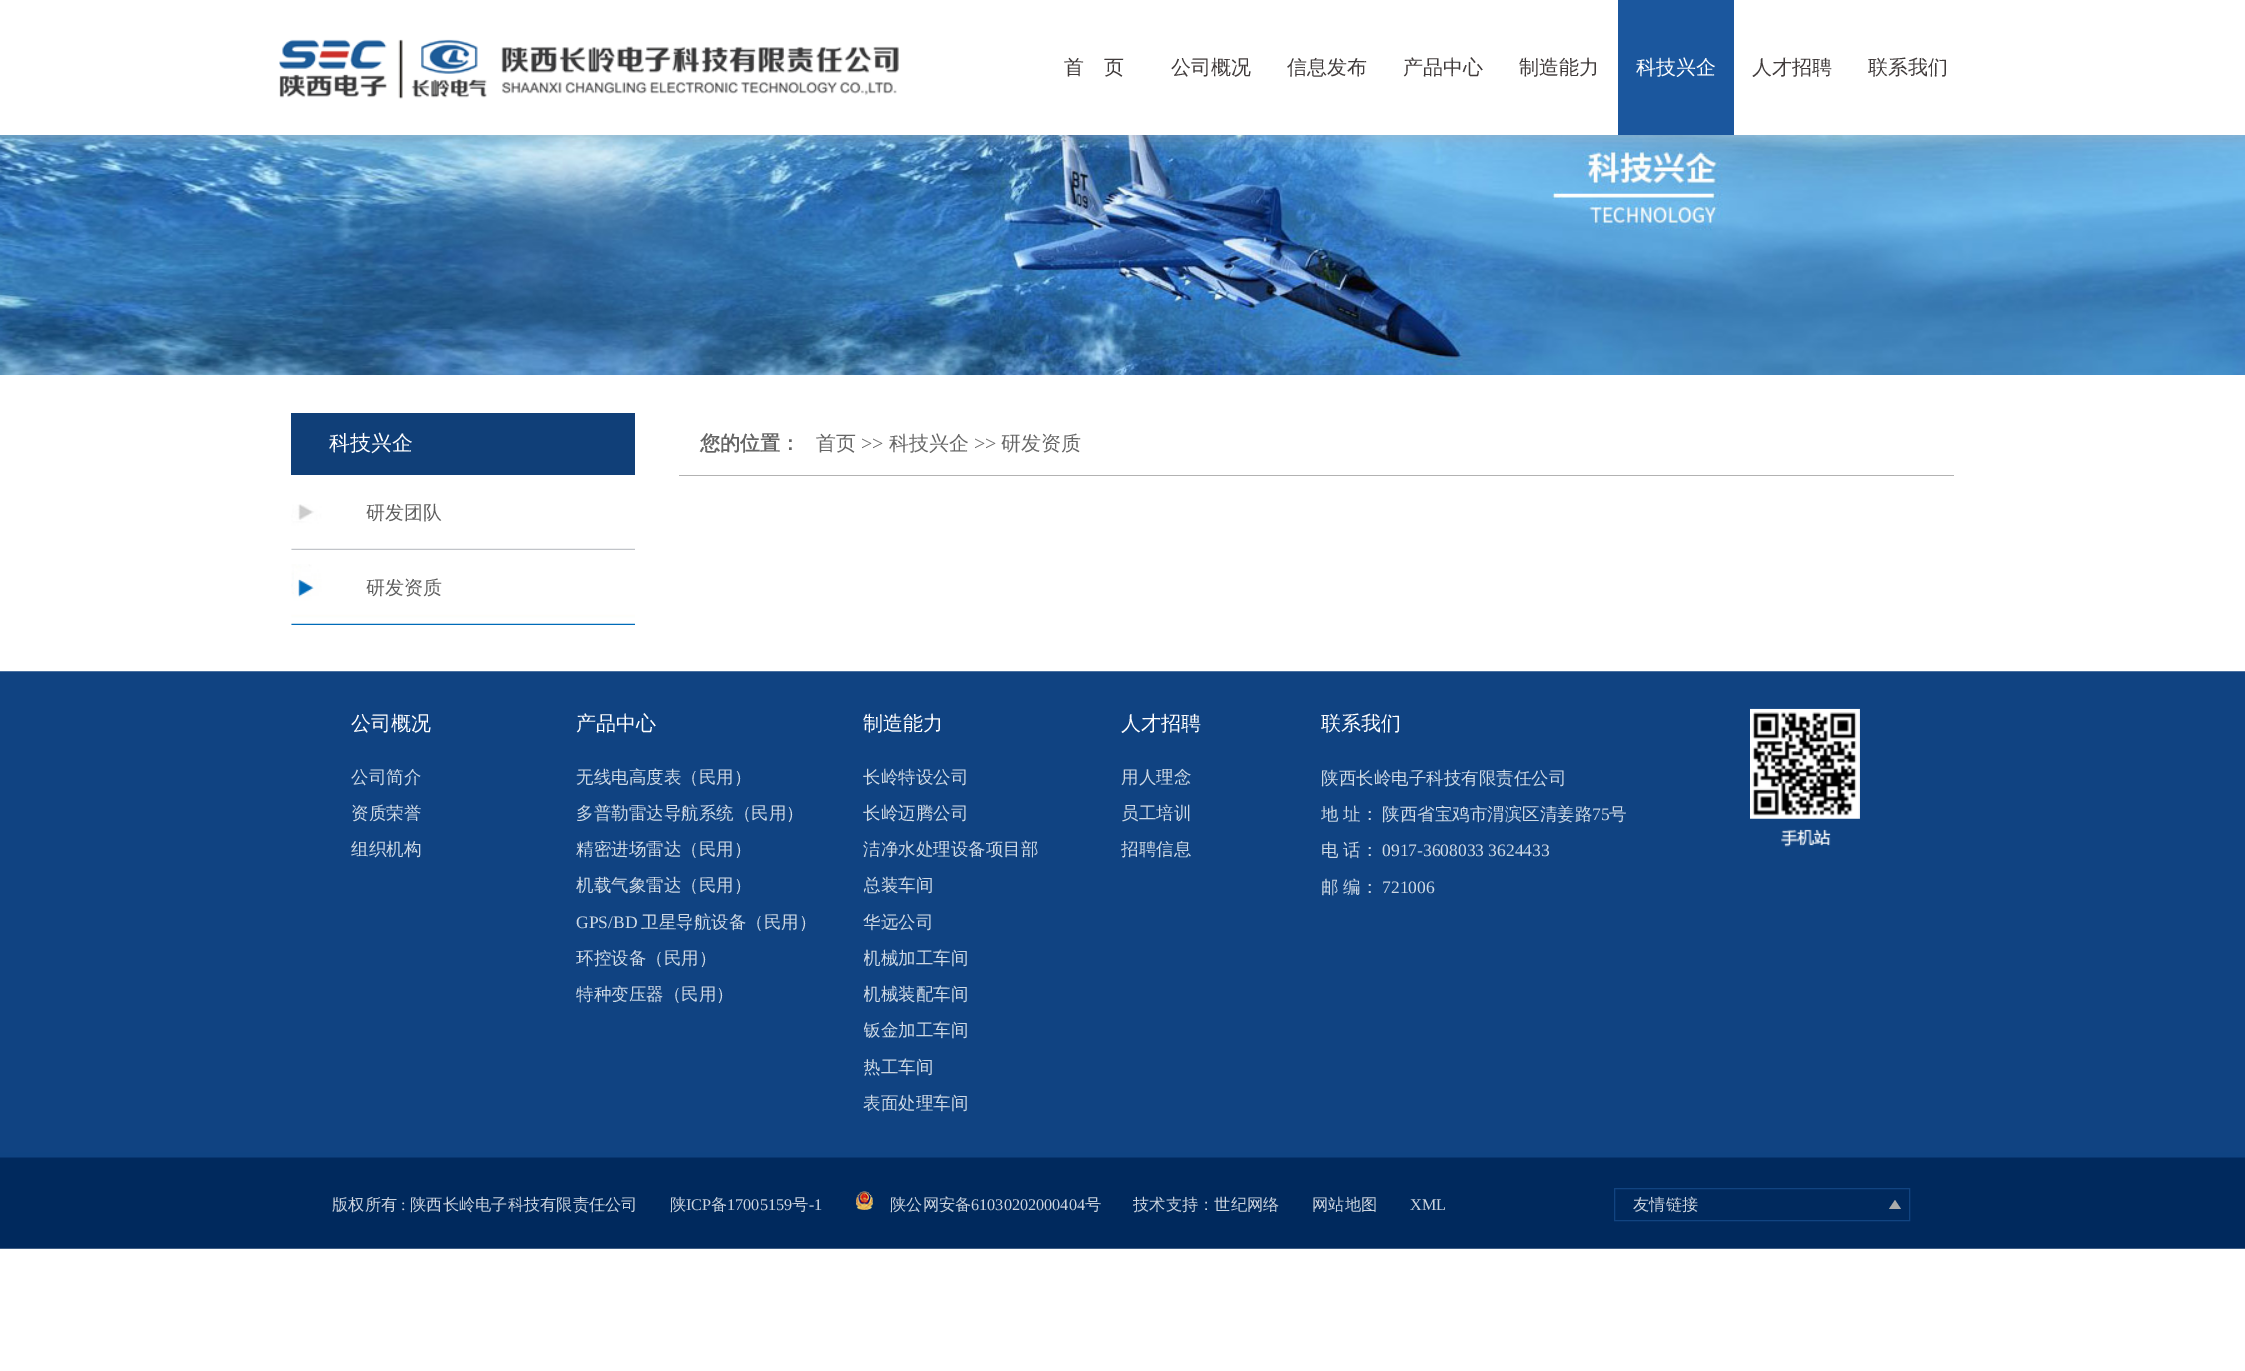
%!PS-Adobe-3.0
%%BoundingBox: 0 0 2245 1371
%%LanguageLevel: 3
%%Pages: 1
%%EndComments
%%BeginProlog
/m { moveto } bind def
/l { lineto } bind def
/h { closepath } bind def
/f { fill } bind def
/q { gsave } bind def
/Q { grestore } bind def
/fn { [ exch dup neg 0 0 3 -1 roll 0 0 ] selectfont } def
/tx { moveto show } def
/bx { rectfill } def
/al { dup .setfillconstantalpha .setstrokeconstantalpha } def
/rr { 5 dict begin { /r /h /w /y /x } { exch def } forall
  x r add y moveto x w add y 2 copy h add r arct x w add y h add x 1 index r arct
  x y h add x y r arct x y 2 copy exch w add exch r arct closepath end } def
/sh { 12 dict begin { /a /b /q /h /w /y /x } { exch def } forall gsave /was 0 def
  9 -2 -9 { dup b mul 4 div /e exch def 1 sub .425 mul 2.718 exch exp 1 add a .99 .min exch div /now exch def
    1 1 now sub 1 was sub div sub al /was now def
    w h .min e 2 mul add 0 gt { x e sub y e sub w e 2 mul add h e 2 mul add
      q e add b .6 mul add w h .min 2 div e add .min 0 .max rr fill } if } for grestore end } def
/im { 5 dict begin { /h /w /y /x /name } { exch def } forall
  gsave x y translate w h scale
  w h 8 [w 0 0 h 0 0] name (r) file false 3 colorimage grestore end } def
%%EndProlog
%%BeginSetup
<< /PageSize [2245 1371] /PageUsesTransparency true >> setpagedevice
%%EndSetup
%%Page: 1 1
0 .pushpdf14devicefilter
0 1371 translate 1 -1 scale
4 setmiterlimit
1 setgray
0 0 2245 1371 bx
(image1.raw) 0 135 2245 240 im
0.714 setgray
0 0 2245 135 0 9.5 0.6 sh
1 setgray
0 0 2245 135 bx
(image0.raw) 279 39 620 60 im
/WenQuanYiZenHei-Medium 20 fn
0.251 0.231 0.231 setrgbcolor
(首　页) 1064 74 tx
(公司概况) 1171 74 tx
(信息发布) 1287 74 tx
(产品中心) 1403 74 tx
(制造能力) 1519 74 tx
0.106 0.341 0.62 setrgbcolor
1618 0 116 135 bx
1 setgray
(科技兴企) 1636 74 tx
0.251 0.231 0.231 setrgbcolor
(人才招聘) 1752 74 tx
(联系我们) 1868 74 tx
0.063 0.247 0.471 setrgbcolor
291 413 344 62 bx
/WenQuanYiZenHei-Medium 21 fn
1 setgray
(科技兴企) 329 450 tx
(image2.raw) 291 504 344 46 im
/WenQuanYiZenHei-Medium 19 fn
0.369 setgray
(研发团队) 366 519 tx
(image3.raw) 291 564 344 61 im
(研发资质) 366 594 tx
0.698 setgray
679 475 1275 1 bx
/WenQuanYiZenHei-Bold 20 fn
0.4 setgray
(您的位置：) 700 450 tx
/WenQuanYiZenHei-Medium 20 fn
(首页) 816 450 tx
/LiberationSerif-Regular 20 fn
(>>) 861 450 tx
/WenQuanYiZenHei-Medium 20 fn
(科技兴企) 889 450 tx
/LiberationSerif-Regular 20 fn
(>>) 974 450 tx
/WenQuanYiZenHei-Medium 20 fn
(研发资质) 1001 450 tx
(image4.raw) 0 671 2245 578 im
1 setgray
(公司概况) 351 730 tx
/WenQuanYiZenHei-Medium 17.5 fn
0.808 0.851 0.898 setrgbcolor
(公司简介) 351 783 tx
(资质荣誉) 351 819 tx
(组织机构) 351 855 tx
/WenQuanYiZenHei-Medium 20 fn
1 setgray
(产品中心) 576 730 tx
/WenQuanYiZenHei-Medium 17.5 fn
0.808 0.851 0.898 setrgbcolor
(无线电高度表（民用）) 576 783 tx
(多普勒雷达导航系统（民用）) 576 819 tx
(精密进场雷达（民用）) 576 855 tx
(机载气象雷达（民用）) 576 891 tx
/LiberationSerif-Regular 17.5 fn
(GPS/BD) 576 928 tx
/WenQuanYiZenHei-Medium 17.5 fn
(卫星导航设备（民用）) 641 928 tx
(环控设备（民用）) 576 964 tx
(特种变压器（民用）) 576 1000 tx
/WenQuanYiZenHei-Medium 20 fn
1 setgray
(制造能力) 863 730 tx
/WenQuanYiZenHei-Medium 17.5 fn
0.808 0.851 0.898 setrgbcolor
(长岭特设公司) 863 783 tx
(长岭迈腾公司) 863 819 tx
(洁净水处理设备项目部) 863 855 tx
q
864 868 175 36 rectclip
(总装车间) 863 891 tx
Q
(华远公司) 863 928 tx
q
864 940 175 36 rectclip
(机械加工车间) 863 964 tx
Q
q
864 976 175 37 rectclip
(机械装配车间) 863 1000 tx
Q
q
864 1013 175 36 rectclip
(钣金加工车间) 863 1036 tx
Q
q
864 1049 175 36 rectclip
(热工车间) 863 1073 tx
Q
(表面处理车间) 863 1109 tx
/WenQuanYiZenHei-Medium 20 fn
1 setgray
(人才招聘) 1121 730 tx
/WenQuanYiZenHei-Medium 17.5 fn
0.808 0.851 0.898 setrgbcolor
(用人理念) 1121 783 tx
(员工培训) 1121 819 tx
q
1121 831 80 37 rectclip
(招聘信息) 1121 855 tx
Q
/WenQuanYiZenHei-Medium 20 fn
1 setgray
(联系我们) 1321 730 tx
/WenQuanYiZenHei-Medium 17.5 fn
0.808 0.851 0.898 setrgbcolor
(陕西长岭电子科技有限责任公司) 1321 784 tx
(地) 1321 820 tx
1343 820 m -1 0 32 (址： 陕西省宝鸡市渭滨区清姜路) widthshow
/LiberationSerif-Regular 17.5 fn
(75) 1592 820 tx
/WenQuanYiZenHei-Medium 17.5 fn
(号) 1609 820 tx
(电) 1321 856 tx
(话：) 1343 856 tx
/LiberationSerif-Regular 17.5 fn
(0917-3608033 3624433) 1382 856 tx
/WenQuanYiZenHei-Medium 17.5 fn
(邮) 1321 893 tx
(编：) 1343 893 tx
/LiberationSerif-Regular 17.5 fn
(721006) 1382 893 tx
(image5.raw) 1750 708 110 139 im
/WenQuanYiZenHei-Medium 16.25 fn
0.796 0.827 0.871 setrgbcolor
(版权所有) 332 1210 tx
/LiberationSerif-Regular 16.25 fn
(:) 401 1210 tx
/WenQuanYiZenHei-Medium 16.25 fn
(陕西长岭电子科技有限责任公司) 410 1210 tx
(陕) 670 1210 tx
/LiberationSerif-Regular 16.25 fn
(ICP) 686 1210 tx
/WenQuanYiZenHei-Medium 16.25 fn
(备) 711 1210 tx
/LiberationSerif-Regular 16.25 fn
(17005159) 727 1210 tx
/WenQuanYiZenHei-Medium 16.25 fn
(号) 792 1210 tx
/LiberationSerif-Regular 16.25 fn
(-1) 809 1210 tx
(image6.raw) 856 1191 17 19 im
/WenQuanYiZenHei-Medium 16.25 fn
(陕公网安备) 890 1210 tx
/LiberationSerif-Regular 16.25 fn
(61030202000404) 971 1210 tx
/WenQuanYiZenHei-Medium 16.25 fn
(号) 1085 1210 tx
(技术支持：世纪网络) 1133 1210 tx
(网站地图) 1312 1210 tx
/LiberationSerif-Regular 16.25 fn
(XML) 1410 1210 tx
0.067 0.267 0.506 setrgbcolor
1614.5 1188.5 295 32 rectstroke
/WenQuanYiZenHei-Medium 16.25 fn
0.796 0.827 0.871 setrgbcolor
(友情链接) 1633 1210 tx
0.667 0.671 0.671 setrgbcolor
1901 1209 m 1889 1209 l 1895 1200 l h f
.poppdf14devicefilter showpage
%%EOF
